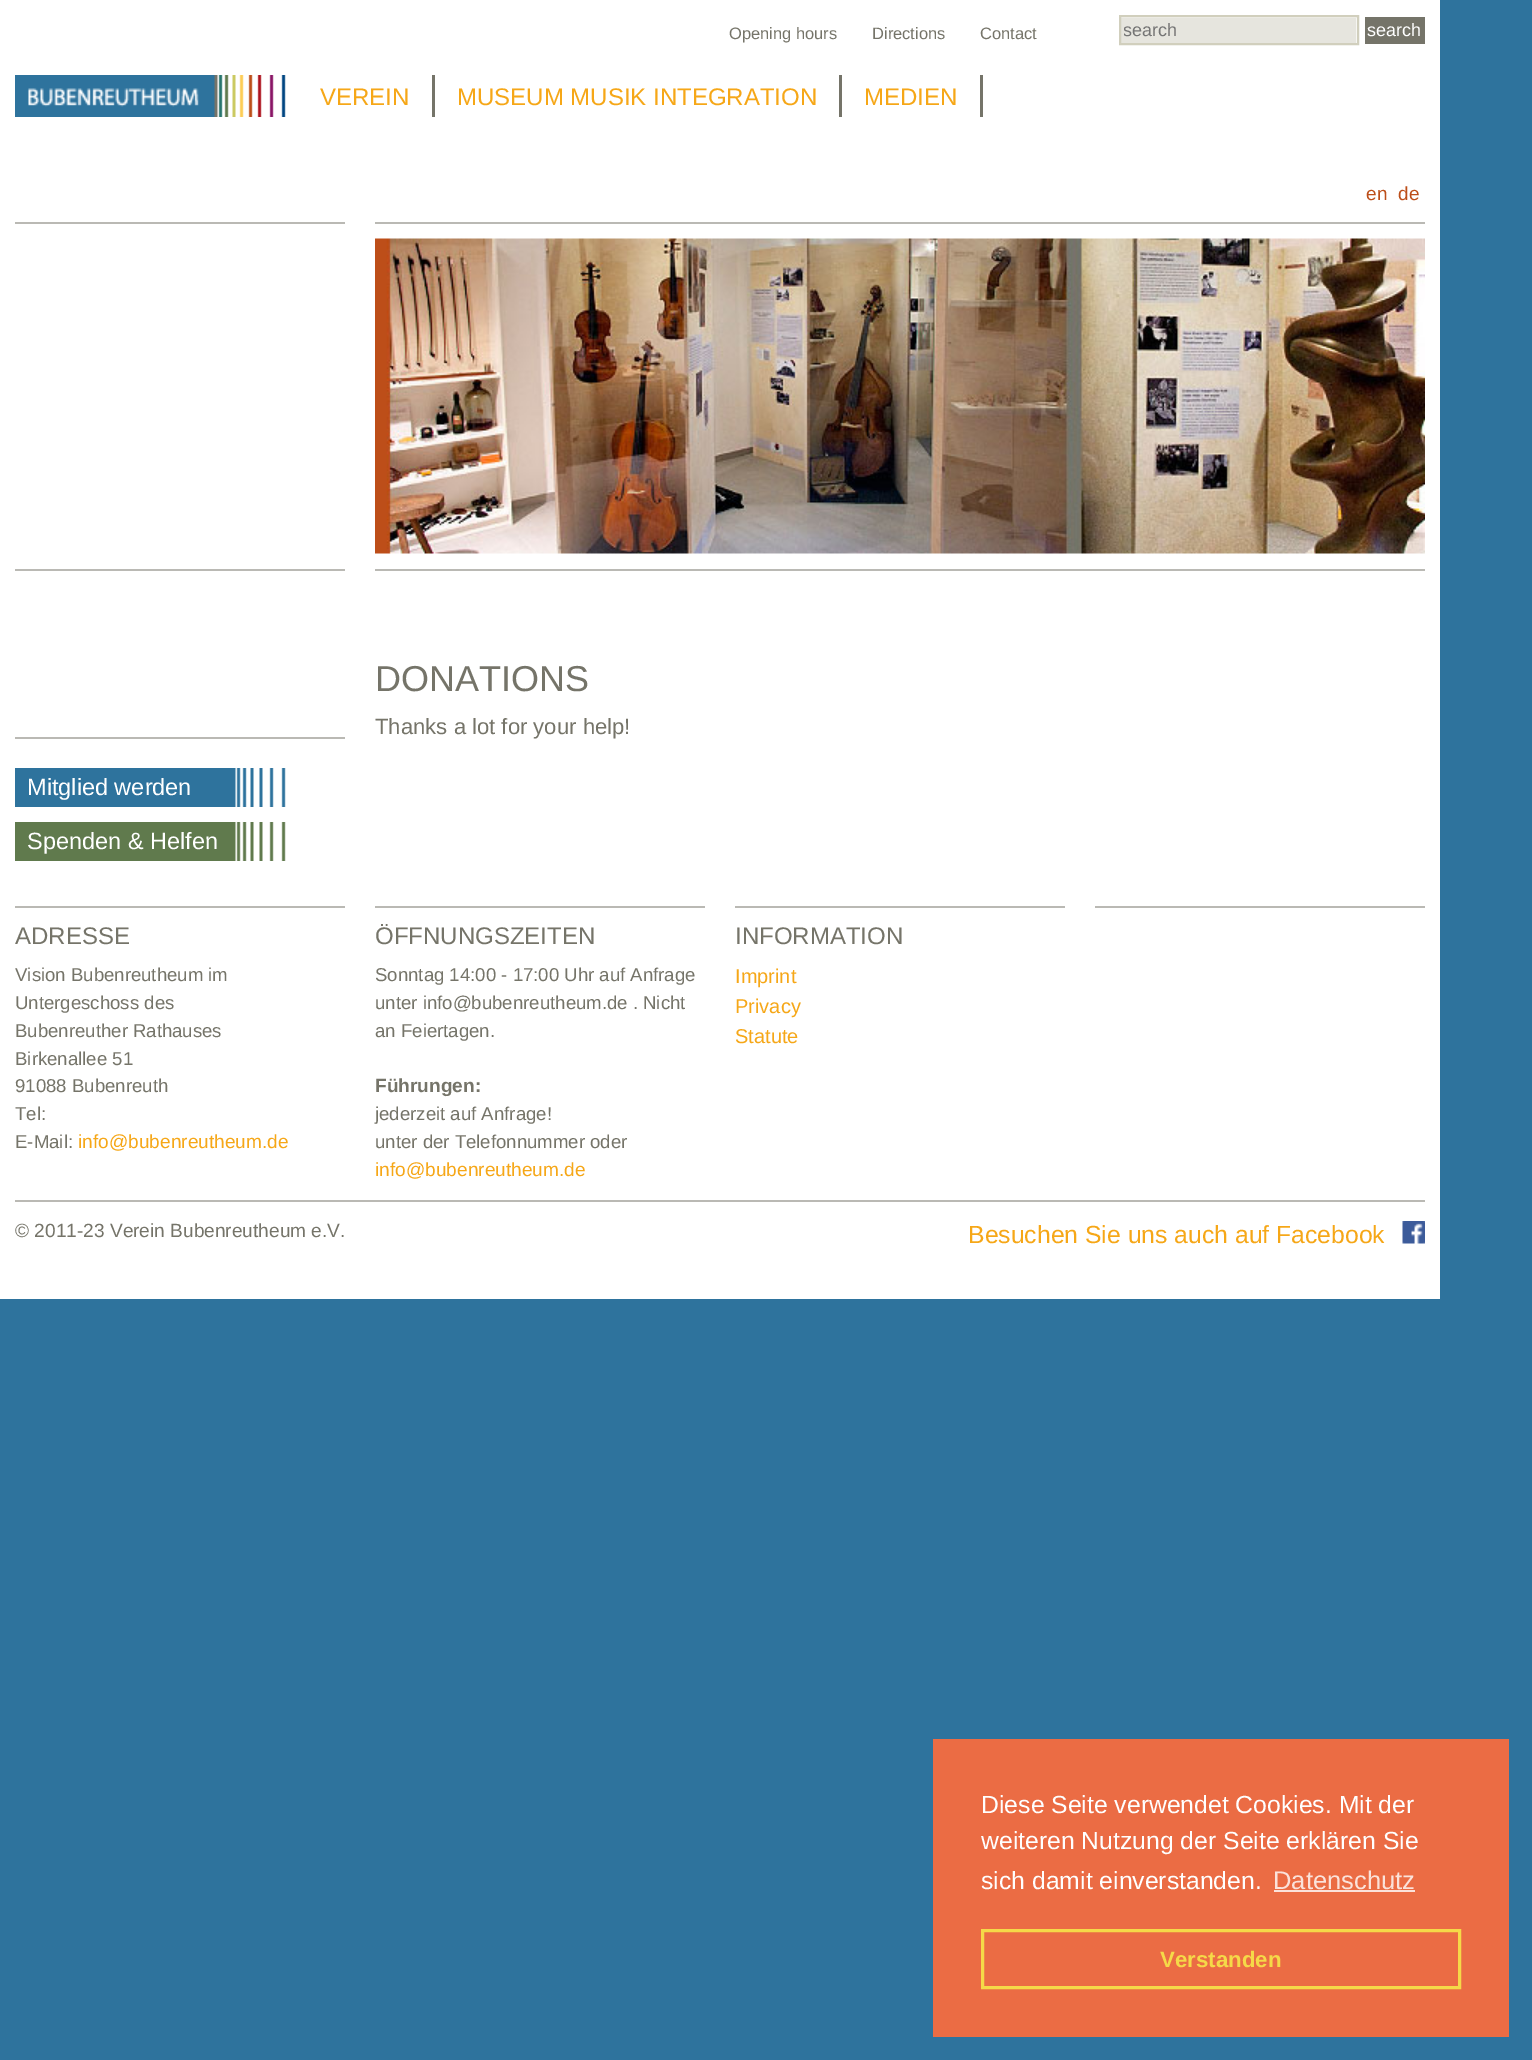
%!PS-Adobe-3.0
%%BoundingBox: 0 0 1532 2060
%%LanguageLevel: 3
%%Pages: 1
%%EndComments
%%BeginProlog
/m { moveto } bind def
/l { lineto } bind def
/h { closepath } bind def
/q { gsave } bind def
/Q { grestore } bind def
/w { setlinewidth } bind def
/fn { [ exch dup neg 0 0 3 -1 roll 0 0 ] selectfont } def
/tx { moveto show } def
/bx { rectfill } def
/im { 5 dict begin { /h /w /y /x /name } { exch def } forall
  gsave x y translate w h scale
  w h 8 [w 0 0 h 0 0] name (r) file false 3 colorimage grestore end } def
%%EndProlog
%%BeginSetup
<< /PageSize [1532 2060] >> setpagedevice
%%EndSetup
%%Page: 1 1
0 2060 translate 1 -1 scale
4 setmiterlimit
0.18 0.451 0.616 setrgbcolor
0 0 1532 2060 bx
1 setgray
0 0 1440 1299 bx
/LiberationSans-Regular 16.5 fn
0.459 0.455 0.412 setrgbcolor
(Opening hours) 729 39 tx
(Directions) 872 39 tx
(Contact) 980 39 tx
0.902 0.898 0.871 setrgbcolor
1121 18 235 25 bx
q
1121 17 237 27 rectclip
0.965 0.965 0.953 setrgbcolor
972 -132 m 1506 -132 l 1506 192 l 972 192 l h 1119 18 m 1356 18 l 1356 45 l 1119 45 l h eofill
Q
0.82 0.812 0.741 setrgbcolor
2 w
1120 16 238 28 rectstroke
q
1124 20 213 21 rectclip
/LiberationSans-Regular 18 fn
0.459 setgray
(search) 1123 36 tx
Q
0.459 0.455 0.412 setrgbcolor
1365 17 60 27 bx
/LiberationSans-Regular 18 fn
1 setgray
(search) 1367 36 tx
(image0.raw) 15 75 271 42 im
0.459 0.455 0.412 setrgbcolor
432 75 3 42 bx
/LiberationSans-Regular 24 fn
0.965 0.655 0.09 setrgbcolor
(VEREIN) 320 105 tx
0.459 0.455 0.412 setrgbcolor
839 75 3 42 bx
0.965 0.655 0.09 setrgbcolor
(MUSEUM MUSIK INTEGRATION) 457 105 tx
0.459 0.455 0.412 setrgbcolor
980 75 3 42 bx
0.965 0.655 0.09 setrgbcolor
(MEDIEN) 864 105 tx
/LiberationSans-Regular 19 fn
0.737 0.306 0.098 setrgbcolor
(en) 1366 200 tx
(de) 1398 200 tx
0.729 0.725 0.706 setrgbcolor
15 222 330 2 bx
15 569 330 2 bx
375 222 1050 2 bx
375 569 1050 2 bx
(image1.raw) 375 238 1050 316 im
/LiberationSans-Regular 36 fn
0.459 0.455 0.412 setrgbcolor
(DONATIONS) 375 691 tx
/LiberationSans-Regular 22.1 fn
(Thanks a lot for your help!) 375 734 tx
0.729 0.725 0.706 setrgbcolor
15 737 330 2 bx
(image2.raw) 15 768 271 39 im
/LiberationSans-Regular 23.5 fn
1 setgray
(Mitglied werden) 27 795 tx
(image3.raw) 15 822 271 39 im
(Spenden & Helfen) 27 849 tx
0.729 0.725 0.706 setrgbcolor
1095 906 330 2 bx
15 906 330 2 bx
/LiberationSans-Regular 24 fn
0.459 0.455 0.412 setrgbcolor
(ADRESSE) 15 944 tx
/LiberationSans-Regular 18.6 fn
(Vision Bubenreutheum im) 15 981 tx
(Untergeschoss des) 15 1009 tx
(Bubenreuther Rathauses) 15 1037 tx
(Birkenallee 51) 15 1065 tx
(91088 Bubenreuth) 15 1092 tx
(Tel:) 15 1120 tx
(E-Mail:) 15 1148 tx
/LiberationSans-Regular 19.1 fn
0.965 0.655 0.09 setrgbcolor
(info@bubenreutheum.de) 78 1148 tx
0.729 0.725 0.706 setrgbcolor
375 906 330 2 bx
/LiberationSans-Regular 24 fn
0.459 0.455 0.412 setrgbcolor
(ÖFFNUNGSZEITEN) 375 944 tx
/LiberationSans-Regular 18.6 fn
(Sonntag 14:00 - 17:00 Uhr auf Anfrage) 375 981 tx
(unter info@bubenreutheum.de . Nicht) 375 1009 tx
(an Feiertagen.) 375 1037 tx
/LiberationSans-Bold 19.1 fn
(Führungen:) 375 1092 tx
/LiberationSans-Regular 18.6 fn
(jederzeit auf Anfrage!) 375 1120 tx
(unter der Telefonnummer oder) 375 1148 tx
/LiberationSans-Regular 19.1 fn
0.965 0.655 0.09 setrgbcolor
(info@bubenreutheum.de) 375 1176 tx
0.729 0.725 0.706 setrgbcolor
735 906 330 2 bx
/LiberationSans-Regular 24 fn
0.459 0.455 0.412 setrgbcolor
(INFORMATION) 735 944 tx
/LiberationSans-Regular 20 fn
0.965 0.655 0.09 setrgbcolor
(Imprint) 735 983 tx
(Privacy) 735 1013 tx
(Statute) 735 1043 tx
0.729 0.725 0.706 setrgbcolor
15 1200 1410 2 bx
/LiberationSans-Regular 19.1 fn
0.459 0.455 0.412 setrgbcolor
(© 2011-23 Verein Bubenreutheum e.V.) 15 1237 tx
(image4.raw) 1402 1221 23 23 im
/LiberationSans-Regular 24.75 fn
0.965 0.655 0.09 setrgbcolor
(Besuchen Sie uns auch auf Facebook) 968 1243 tx
0.922 0.424 0.267 setrgbcolor
933 1739 576 298 bx
1 setgray
(Diese Seite verwendet Cookies. Mit der) 981 1813 tx
(weiteren Nutzung der Seite erklären Sie) 981 1849 tx
(sich damit einverstanden.) 981 1889 tx
/LiberationSans-Regular 25.5 fn
0.984 0.886 0.855 setrgbcolor
(Datenschutz) 1273 1889 tx
1274 1890 141 2 bx
0.961 0.851 0.282 setrgbcolor
3 w
982.5 1930.5 477 57 rectstroke
/LiberationSans-Bold 22.25 fn
(Verstanden) 1160 1967 tx
showpage
%%EOF
